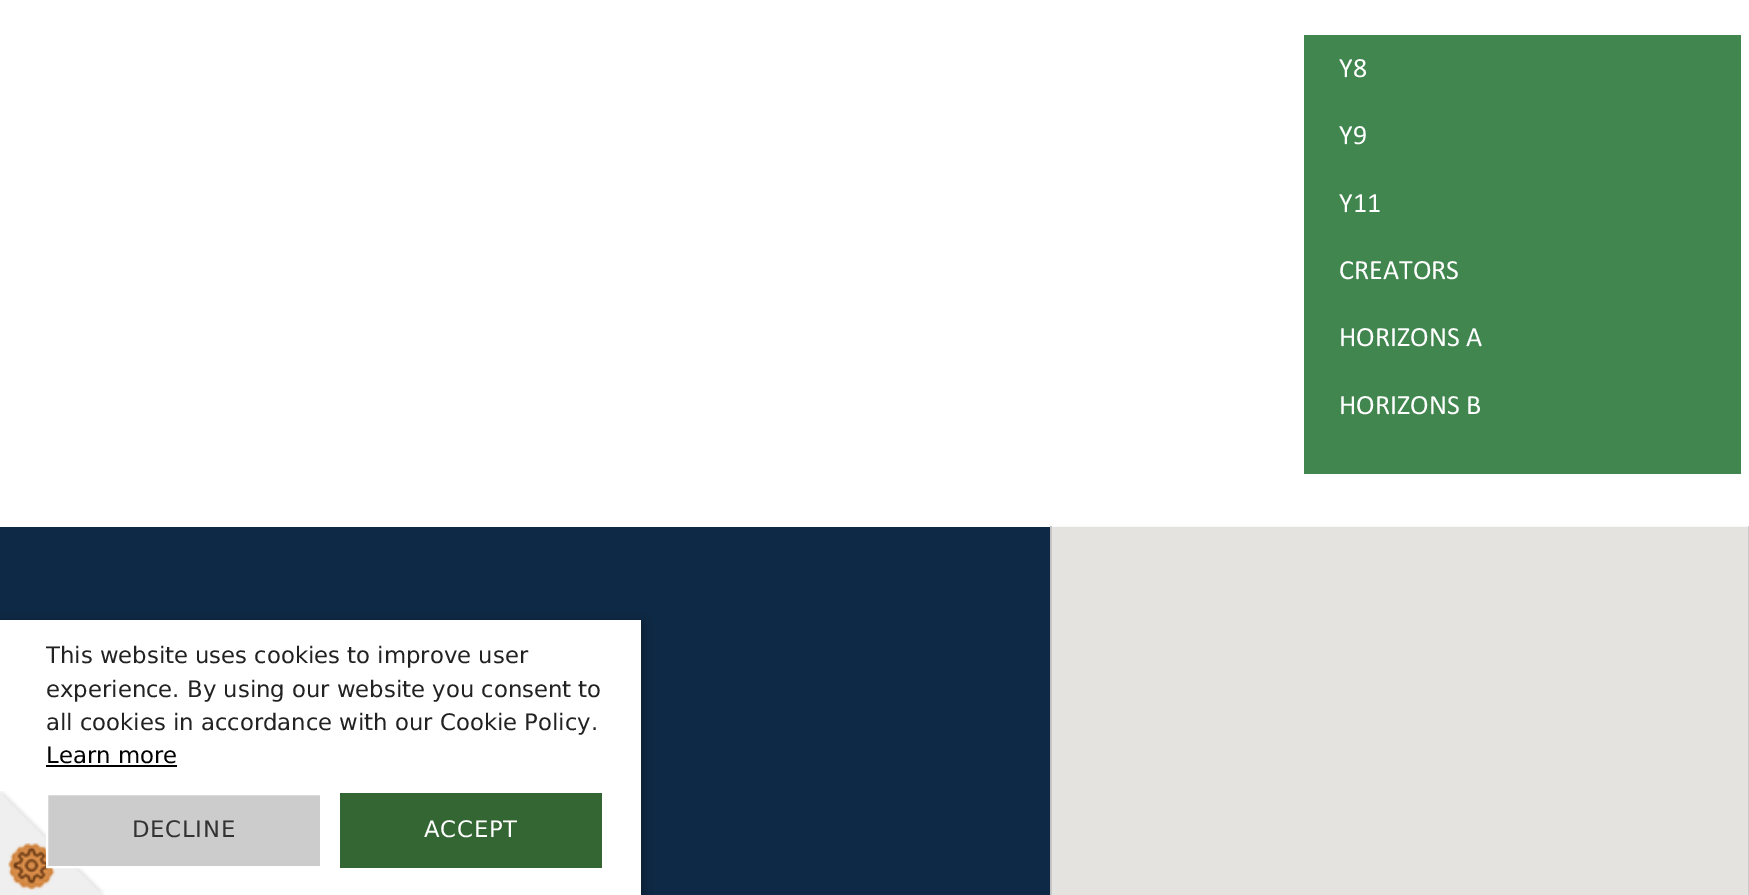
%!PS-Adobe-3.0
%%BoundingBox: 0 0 1749 895
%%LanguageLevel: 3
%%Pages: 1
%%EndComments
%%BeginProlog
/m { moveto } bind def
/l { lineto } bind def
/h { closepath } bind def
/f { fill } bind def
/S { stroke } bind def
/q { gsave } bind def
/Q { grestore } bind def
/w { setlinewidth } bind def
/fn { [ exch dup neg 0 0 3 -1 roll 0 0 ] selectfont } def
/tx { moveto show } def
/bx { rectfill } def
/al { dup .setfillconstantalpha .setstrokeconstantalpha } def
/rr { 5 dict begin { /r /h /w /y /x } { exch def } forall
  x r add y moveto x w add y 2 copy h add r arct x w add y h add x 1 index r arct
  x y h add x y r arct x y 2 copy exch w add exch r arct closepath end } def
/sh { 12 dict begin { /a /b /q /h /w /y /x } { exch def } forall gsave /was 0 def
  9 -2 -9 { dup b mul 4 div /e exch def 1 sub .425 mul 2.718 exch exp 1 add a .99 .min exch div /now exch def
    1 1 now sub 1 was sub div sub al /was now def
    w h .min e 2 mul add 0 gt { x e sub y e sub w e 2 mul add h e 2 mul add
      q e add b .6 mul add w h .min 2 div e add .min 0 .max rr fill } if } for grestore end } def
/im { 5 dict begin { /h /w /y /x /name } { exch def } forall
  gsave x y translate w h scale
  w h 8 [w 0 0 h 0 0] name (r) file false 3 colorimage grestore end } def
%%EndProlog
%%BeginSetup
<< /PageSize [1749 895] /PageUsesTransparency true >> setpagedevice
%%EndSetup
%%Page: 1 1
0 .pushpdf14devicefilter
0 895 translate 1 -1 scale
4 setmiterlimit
1 setgray
0 0 1749 895 bx
0.255 0.522 0.31 setrgbcolor
1304 35 437 439 bx
/Calibri-Regular 28 fn
1 setgray
(Y8) 1339 77 tx
(Y9) 1339 144 tx
(Y11) 1339 212 tx
(CREATORS) 1339 279 tx
(HORIZONS A) 1339 346 tx
(HORIZONS B) 1339 414 tx
0.055 0.161 0.275 setrgbcolor
0 527 1050 368 bx
(image0.raw) 1050 526 699 369 im
0 setgray
2 623 640 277 0 7 0.35 sh
1 setgray
0 620 641 275 bx
(image1.raw) 0 791 105 104 im
/DejaVuSans-Regular 22.75 fn
0.133 setgray
(This website uses cookies to improve user) 46 663 tx
(experience. By using our website you consent to) 46 697 tx
(all cookies in accordance with our Cookie Policy.) 46 730 tx
0 setgray
(Learn more) 46 763 tx
46 765 131 2 bx
0.8 setgray
47 794 m 321 794 l 321 867 l 47 867 l h q f Q
1 setgray
2 w
S
0.2 setgray
132 837 m 0.75 0 (DECLINE) ashow
0.2 0.4 0.2 setrgbcolor
340 793 262 75 bx
1 setgray
424 837 m 0.75 0 (ACCEPT) ashow
.poppdf14devicefilter showpage
%%EOF
